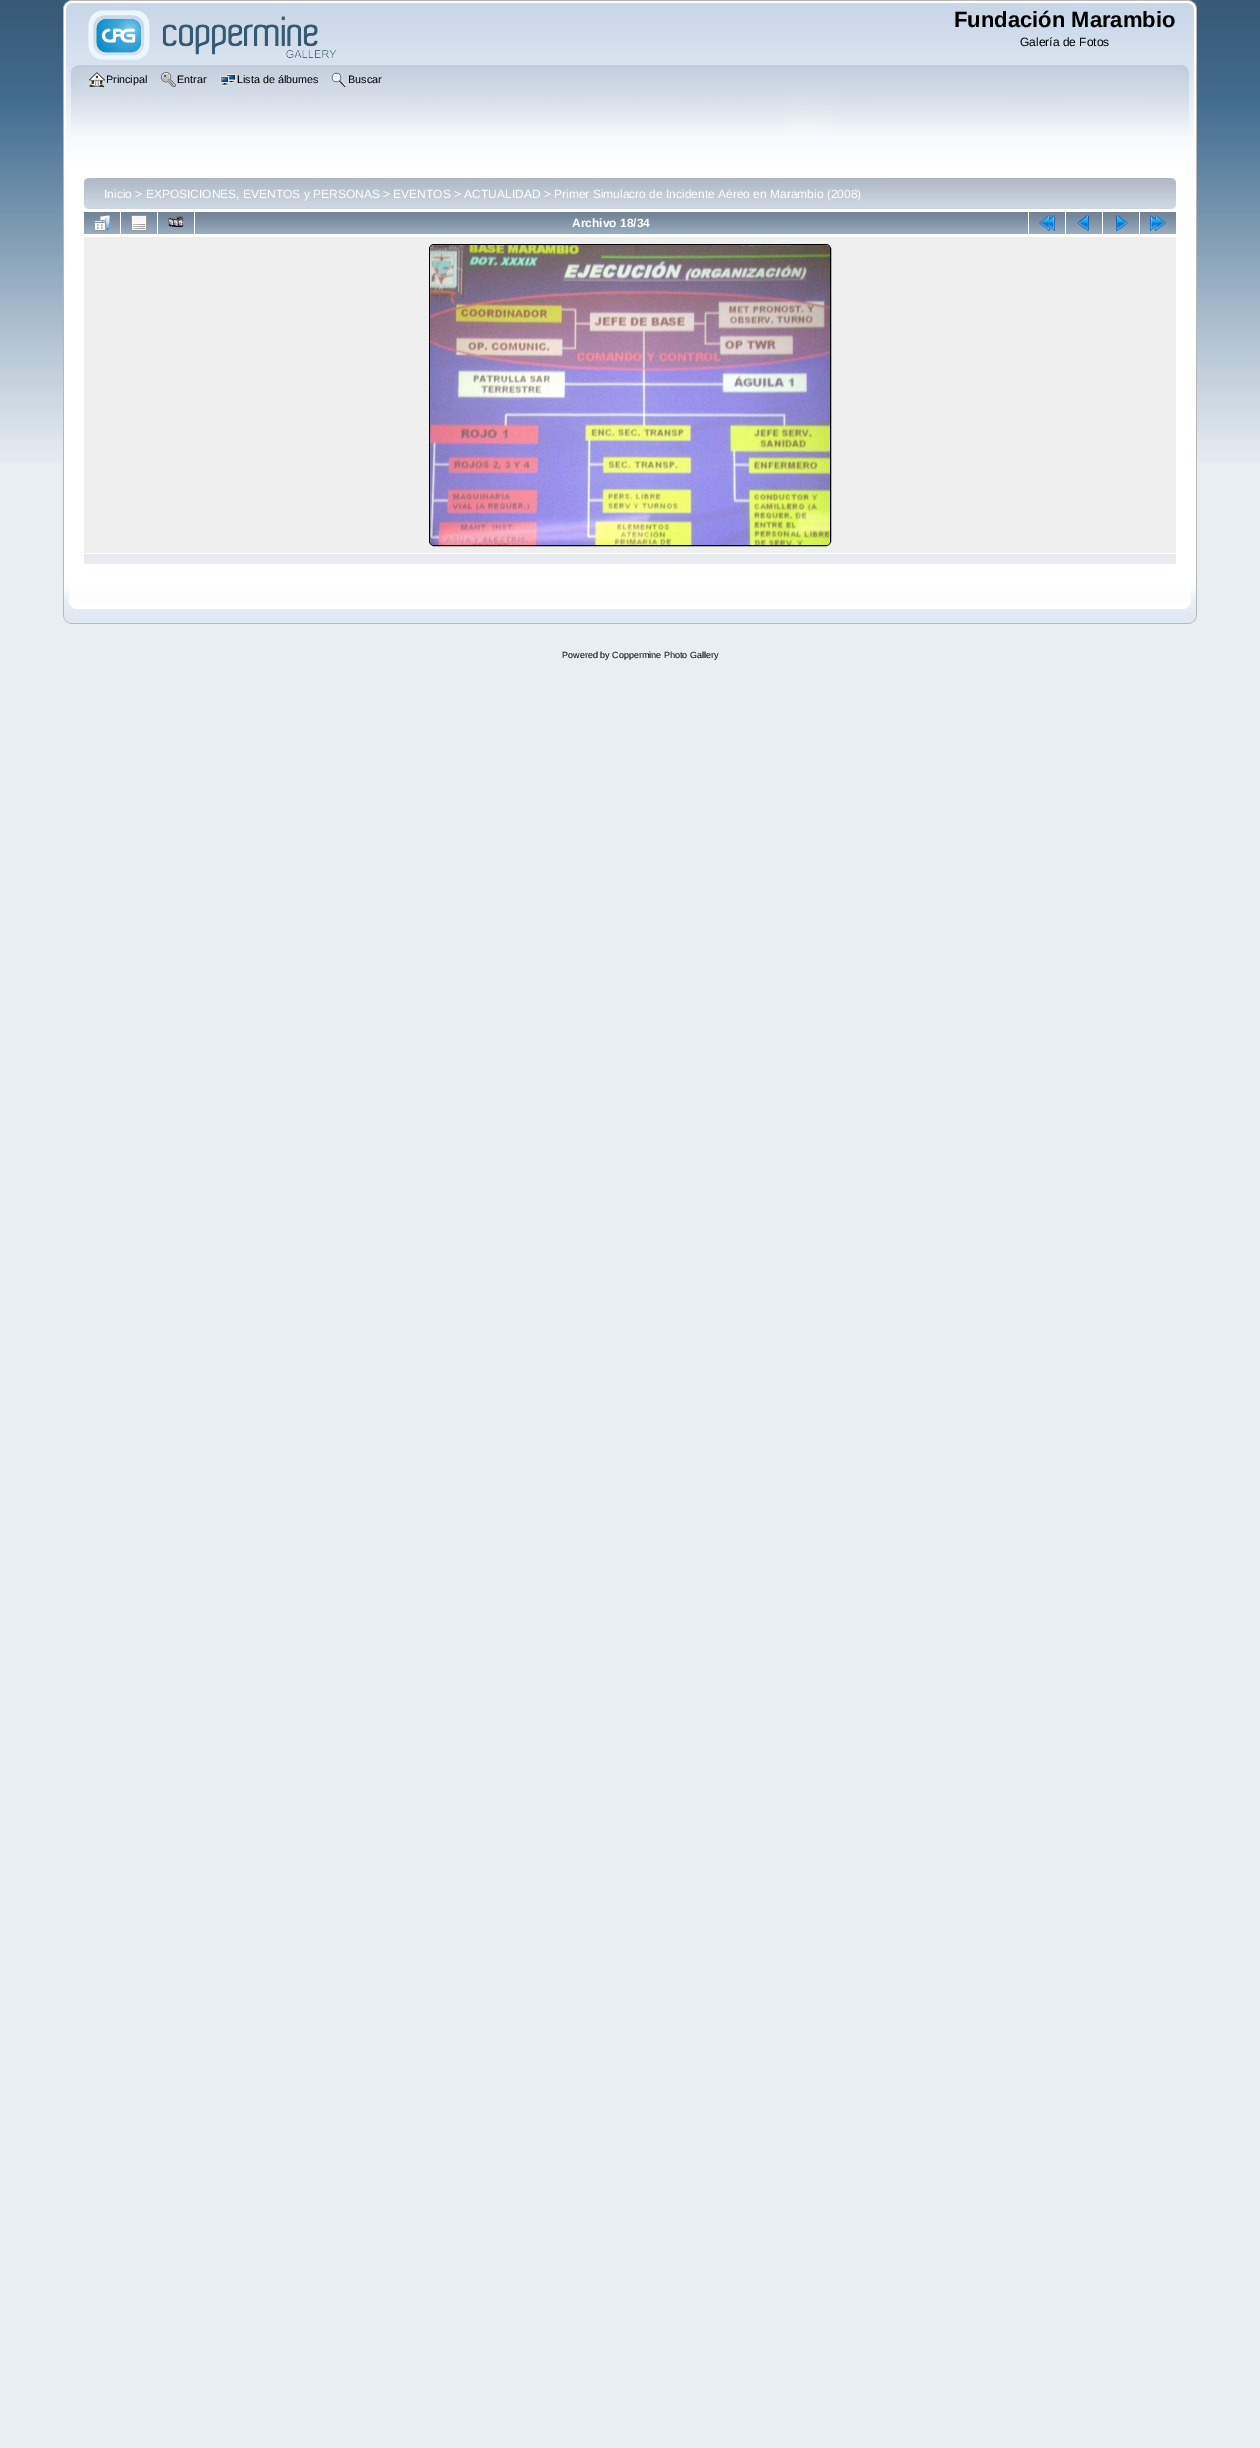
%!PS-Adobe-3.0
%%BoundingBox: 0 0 1260 2448
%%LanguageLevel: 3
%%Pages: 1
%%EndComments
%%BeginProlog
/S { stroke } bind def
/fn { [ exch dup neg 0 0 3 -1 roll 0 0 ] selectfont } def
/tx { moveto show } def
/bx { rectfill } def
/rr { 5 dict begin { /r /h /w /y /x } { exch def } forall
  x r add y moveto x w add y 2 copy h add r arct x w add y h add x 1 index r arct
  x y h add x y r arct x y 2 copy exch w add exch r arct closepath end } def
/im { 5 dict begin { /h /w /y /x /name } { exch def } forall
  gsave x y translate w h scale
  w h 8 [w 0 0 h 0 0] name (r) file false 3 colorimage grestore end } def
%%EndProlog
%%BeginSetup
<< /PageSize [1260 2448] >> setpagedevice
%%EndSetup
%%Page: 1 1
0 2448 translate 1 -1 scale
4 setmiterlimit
0.914 0.933 0.949 setrgbcolor
0 0 1260 2448 bx
(image0.raw) 0 0 1260 462 im
(image1.raw) 63 0 1126 65 im
(image2.raw) 1189 0 8 65 im
(image3.raw) 88 10 248 50 im
/LiberationSans-Bold 22 fn
0 setgray
(Fundación Marambio) 954 27 tx
/LiberationSans-Regular 12 fn
(Galería de Fotos) 1020 46 tx
(image4.raw) 63 65 1119 110 im
(image5.raw) 1182 65 15 110 im
(image6.raw) 89 72 16 16 im
/LiberationSans-Regular 10.75 fn
(Principal) 106 83 tx
(image7.raw) 161 72 15 15 im
(Entrar) 177 83 tx
(image8.raw) 220 74 16 12 im
(Lista de álbumes) 237 83 tx
(image9.raw) 331 72 16 15 im
(Buscar) 348 83 tx
1 setgray
64 175 1132 405 bx
0.718 setgray
63 175 1 405 bx
1196 175 1 405 bx
(image10.raw) 84 178 1087 31 im
(image11.raw) 1171 178 5 31 im
/LiberationSans-Regular 12 fn
1 setgray
(Inicio > EXPOSICIONES, EVENTOS y PERSONAS > EVENTOS > ACTUALIDAD > Primer Simulacro de Incidente Aéreo en Marambio \(2008\)) 104 198 tx
(image12.raw) 84 212 36 22 im
(image13.raw) 94 215 16 16 im
(image12.raw) 121 212 36 22 im
(image14.raw) 131 215 16 16 im
(image12.raw) 158 212 36 22 im
(image15.raw) 168 216 16 12 im
(image16.raw) 195 212 833 22 im
/LiberationSans-Bold 12 fn
(Archivo 18/34) 572 227 tx
(image12.raw) 1029 212 36 22 im
(image17.raw) 1039 215 16 16 im
(image12.raw) 1066 212 36 22 im
(image18.raw) 1077 215 12 16 im
(image12.raw) 1103 212 36 22 im
(image19.raw) 1116 215 12 16 im
(image12.raw) 1140 212 36 22 im
(image20.raw) 1150 215 16 16 im
0.937 setgray
84 237 1092 316 bx
0 setgray
429.5 244.5 401 301 4.5 rr S
(image21.raw) 430 245 400 300 im
0.906 0.918 0.937 setrgbcolor
84 554 1092 10 bx
(image22.raw) 63 580 1121 44 im
(image23.raw) 1184 580 13 44 im
/LiberationSans-Regular 9 fn
0 setgray
(Powered by Coppermine Photo Gallery) 562 658 tx
showpage
%%EOF
